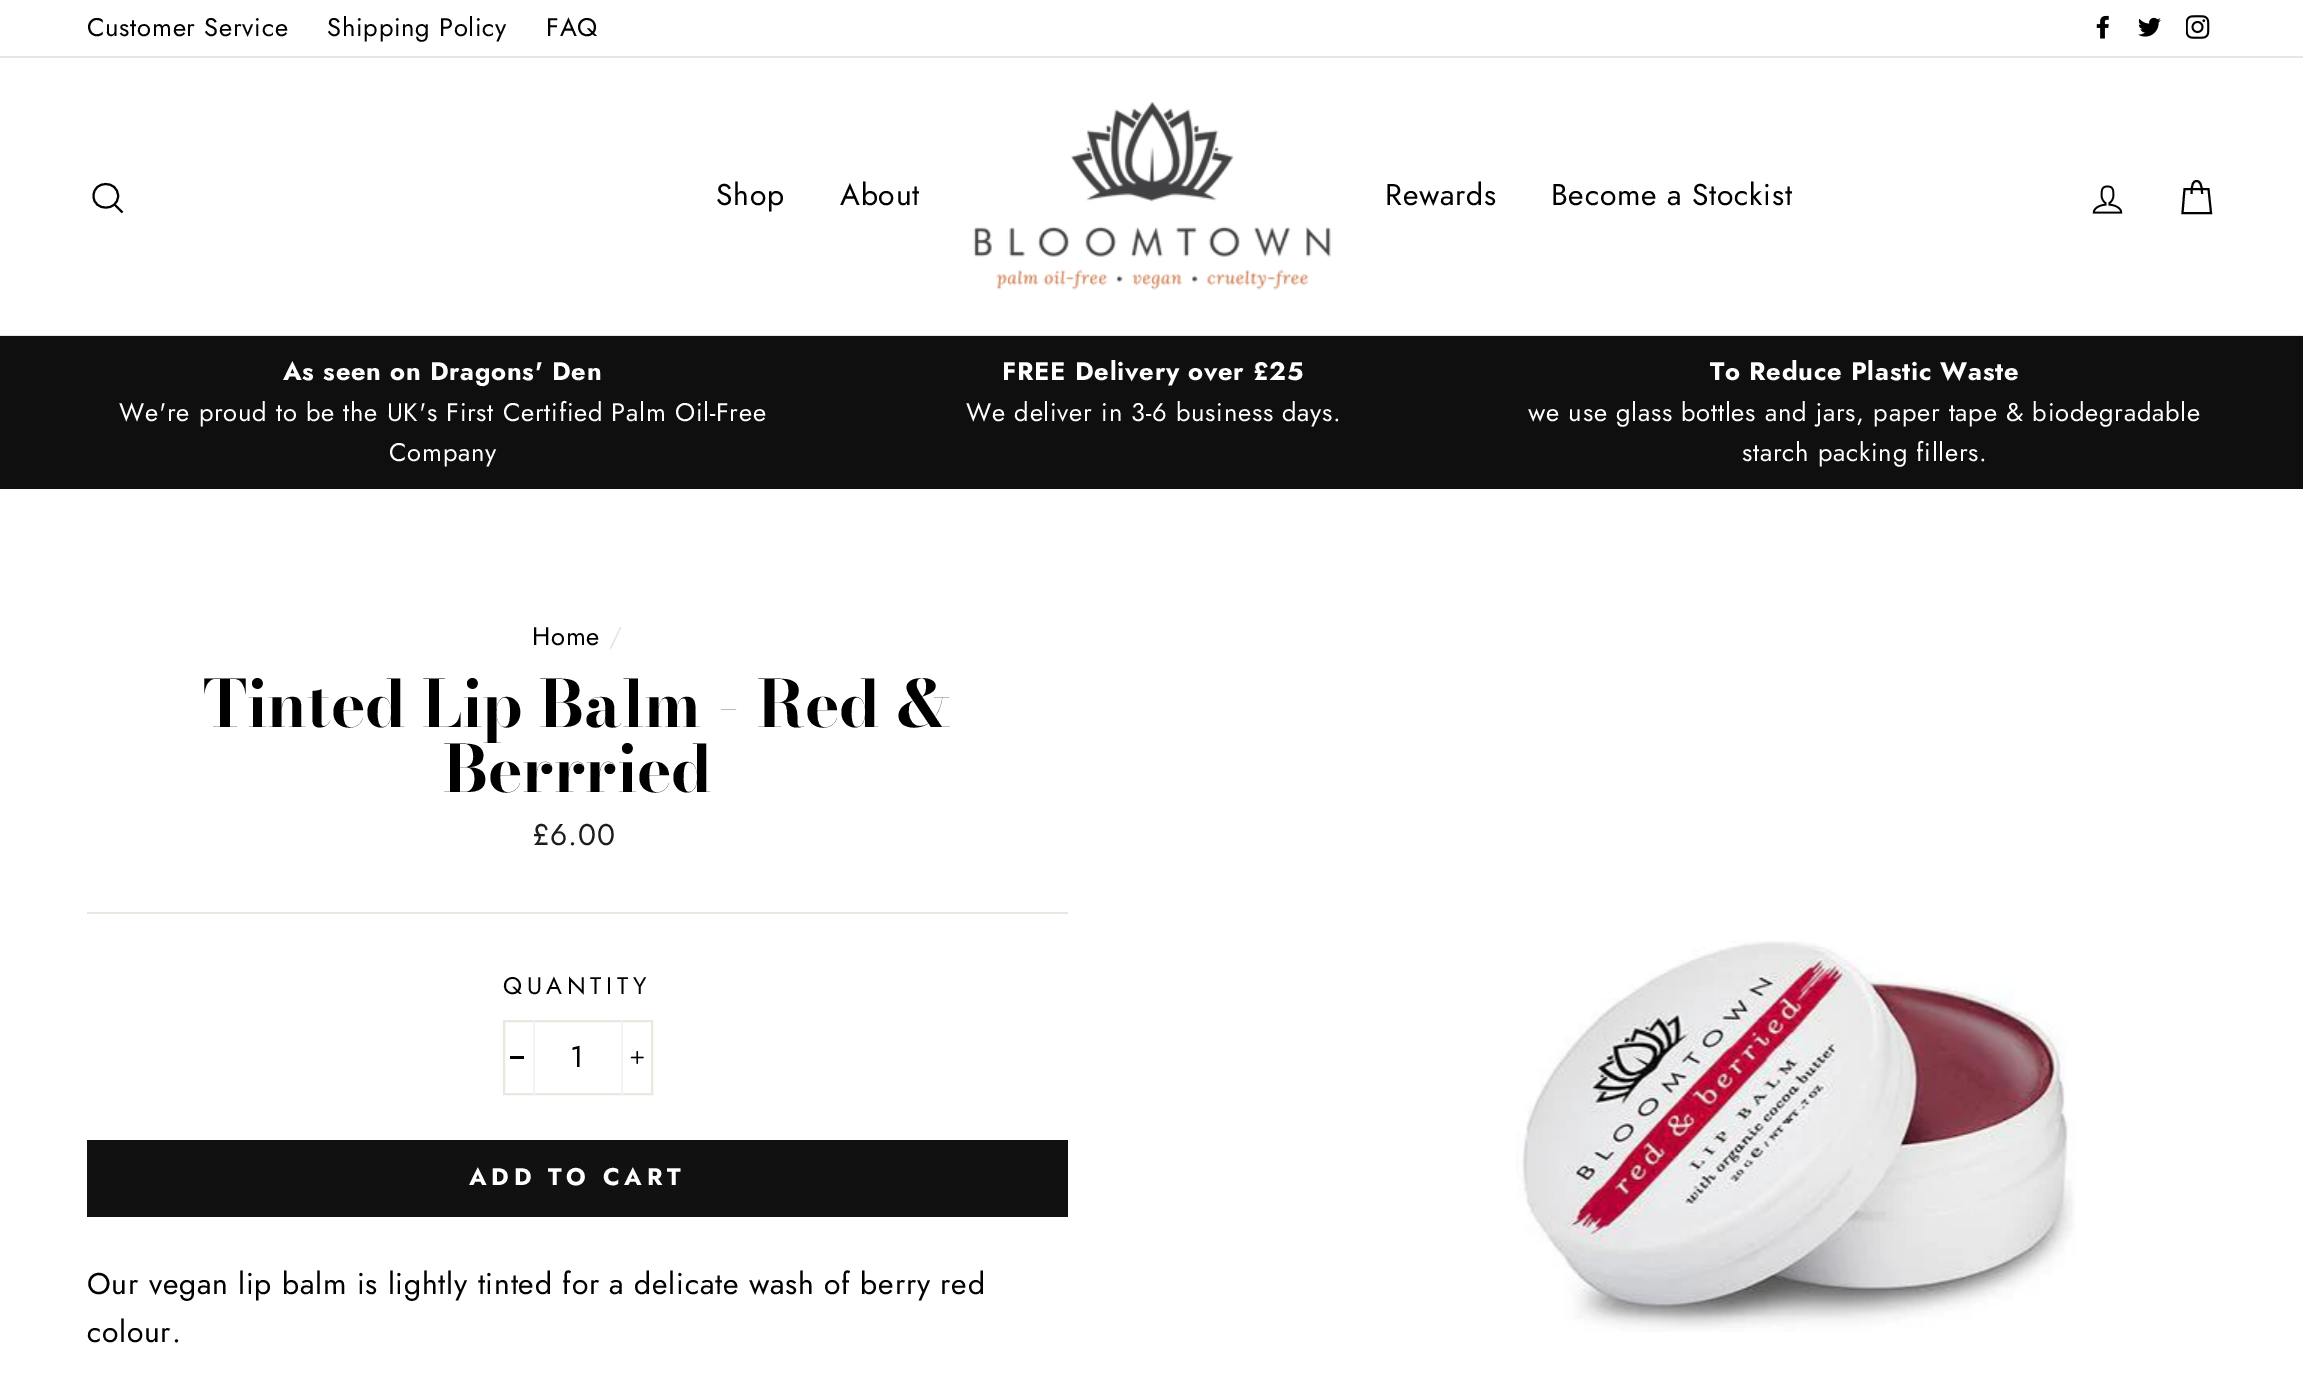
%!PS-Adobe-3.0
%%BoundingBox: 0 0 2303 1395
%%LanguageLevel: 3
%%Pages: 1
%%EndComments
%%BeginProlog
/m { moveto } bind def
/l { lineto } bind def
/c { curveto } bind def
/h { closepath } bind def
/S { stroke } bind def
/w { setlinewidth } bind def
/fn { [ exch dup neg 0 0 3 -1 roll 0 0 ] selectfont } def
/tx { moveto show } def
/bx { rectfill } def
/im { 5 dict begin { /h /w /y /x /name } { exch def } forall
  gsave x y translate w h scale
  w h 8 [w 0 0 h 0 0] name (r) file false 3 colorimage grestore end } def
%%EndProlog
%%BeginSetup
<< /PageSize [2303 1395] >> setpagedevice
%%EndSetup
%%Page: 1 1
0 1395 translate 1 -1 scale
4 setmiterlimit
1 setgray
0 0 2303 1395 bx
/Jost-Regular 25.5 fn
0 setgray
87 36 m 0.75 0 (Customer Service) ashow
327 36 m 0.75 0 (Shipping Policy) ashow
546 36 m 0.75 0 (FAQ) ashow
(image0.raw) 2096 15 13 24 im
(image1.raw) 2138 17 23 20 im
(image2.raw) 2186 15 24 24 im
0.902 setgray
0 56 2303 2 bx
0.91 0.91 0.882 setrgbcolor
0 335 2303 1 bx
0 setgray
2 w
118 196 m 118 211.5 93.5 211.5 93.5 196 c 93.5 180 118 180 118 196 c h 122.5 212.5 m 114.5 204.5 l S
/Jost-Regular 30 fn
716 205 m 0.75 0 (Shop) ashow
840 205 m 0.75 0 (About) ashow
(image3.raw) 973 102 358 188 im
1385 205 m 0.75 0 (Rewards) ashow
1551 205 m 0.75 0 (Become a Stockist) ashow
(image4.raw) 2092 185 31 29 im
2191.5 194 m 2191.5 183.5 2193.5 181 2196.5 181 c 2199.5 181 2202 183.5 2202 194 c 2184.5 189 m 2208.5 189 l 2211 213 l 2182.5 213 l h S
0.059 setgray
0 336 2303 153 bx
/Jost-Bold 25.5 fn
1 setgray
283 380 m 0.75 0 (As seen on Dragons' Den) ashow
/Jost-Regular 25.5 fn
119 421 m 0.75 0 (We're proud to be the UK's First Certified Palm Oil-Free) ashow
389 461 m 0.75 0 (Company) ashow
/Jost-Bold 25.5 fn
1002 380 m 0.75 0 (FREE Delivery over £25) ashow
/Jost-Regular 25.5 fn
966 421 m 0.75 0 (We deliver in 3-6 business days.) ashow
/Jost-Bold 25.5 fn
1710 380 m 0.75 0 (To Reduce Plastic Waste) ashow
/Jost-Regular 25.5 fn
1528 421 m 0.75 0 (we use glass bottles and jars, paper tape & biodegradable) ashow
1742 461 m 0.75 0 (starch packing fillers.) ashow
0 setgray
532 645 m 0.75 0 (Home) ashow
0.91 0.91 0.882 setrgbcolor
609 645 m 0.75 0 (/) ashow
/BodoniModa-Bold 64.5 fn
0 setgray
(Tinted Lip Balm - Red &) 203 727 tx
(Berrried) 443 792 tx
/Jost-Regular 30 fn
0.11 0.114 0.114 setrgbcolor
532 845 m 0.75 0 (£6.00) ashow
0.91 0.91 0.882 setrgbcolor
87 912 981 2 bx
/Jost-Regular 24 fn
0 setgray
503 994 m 4.75 0 (QUANTITY) ashow
0.91 0.91 0.882 setrgbcolor
504 1021 148 73 rectstroke
0.949 setgray
533 1020 2 75 bx
0 setgray
510 1056 14 3 bx
/Jost-Regular 30 fn
570 1067 m 0.75 0 (1) ashow
0.949 setgray
621 1020 2 75 bx
(image5.raw) 630 1051 14 13 im
0.067 setgray
87 1140 981 77 bx
/Jost-Bold 24 fn
1 setgray
469 1185 m 4.75 0 (ADD TO CART) ashow
/Jost-Regular 30 fn
0 setgray
87 1294 m 0.75 0 (Our vegan lip balm is lightly tinted for a delicate wash of berry red) ashow
87 1342 m 0.75 0 (colour.) ashow
(image6.raw) 1516 941 560 391 im
showpage
%%EOF
